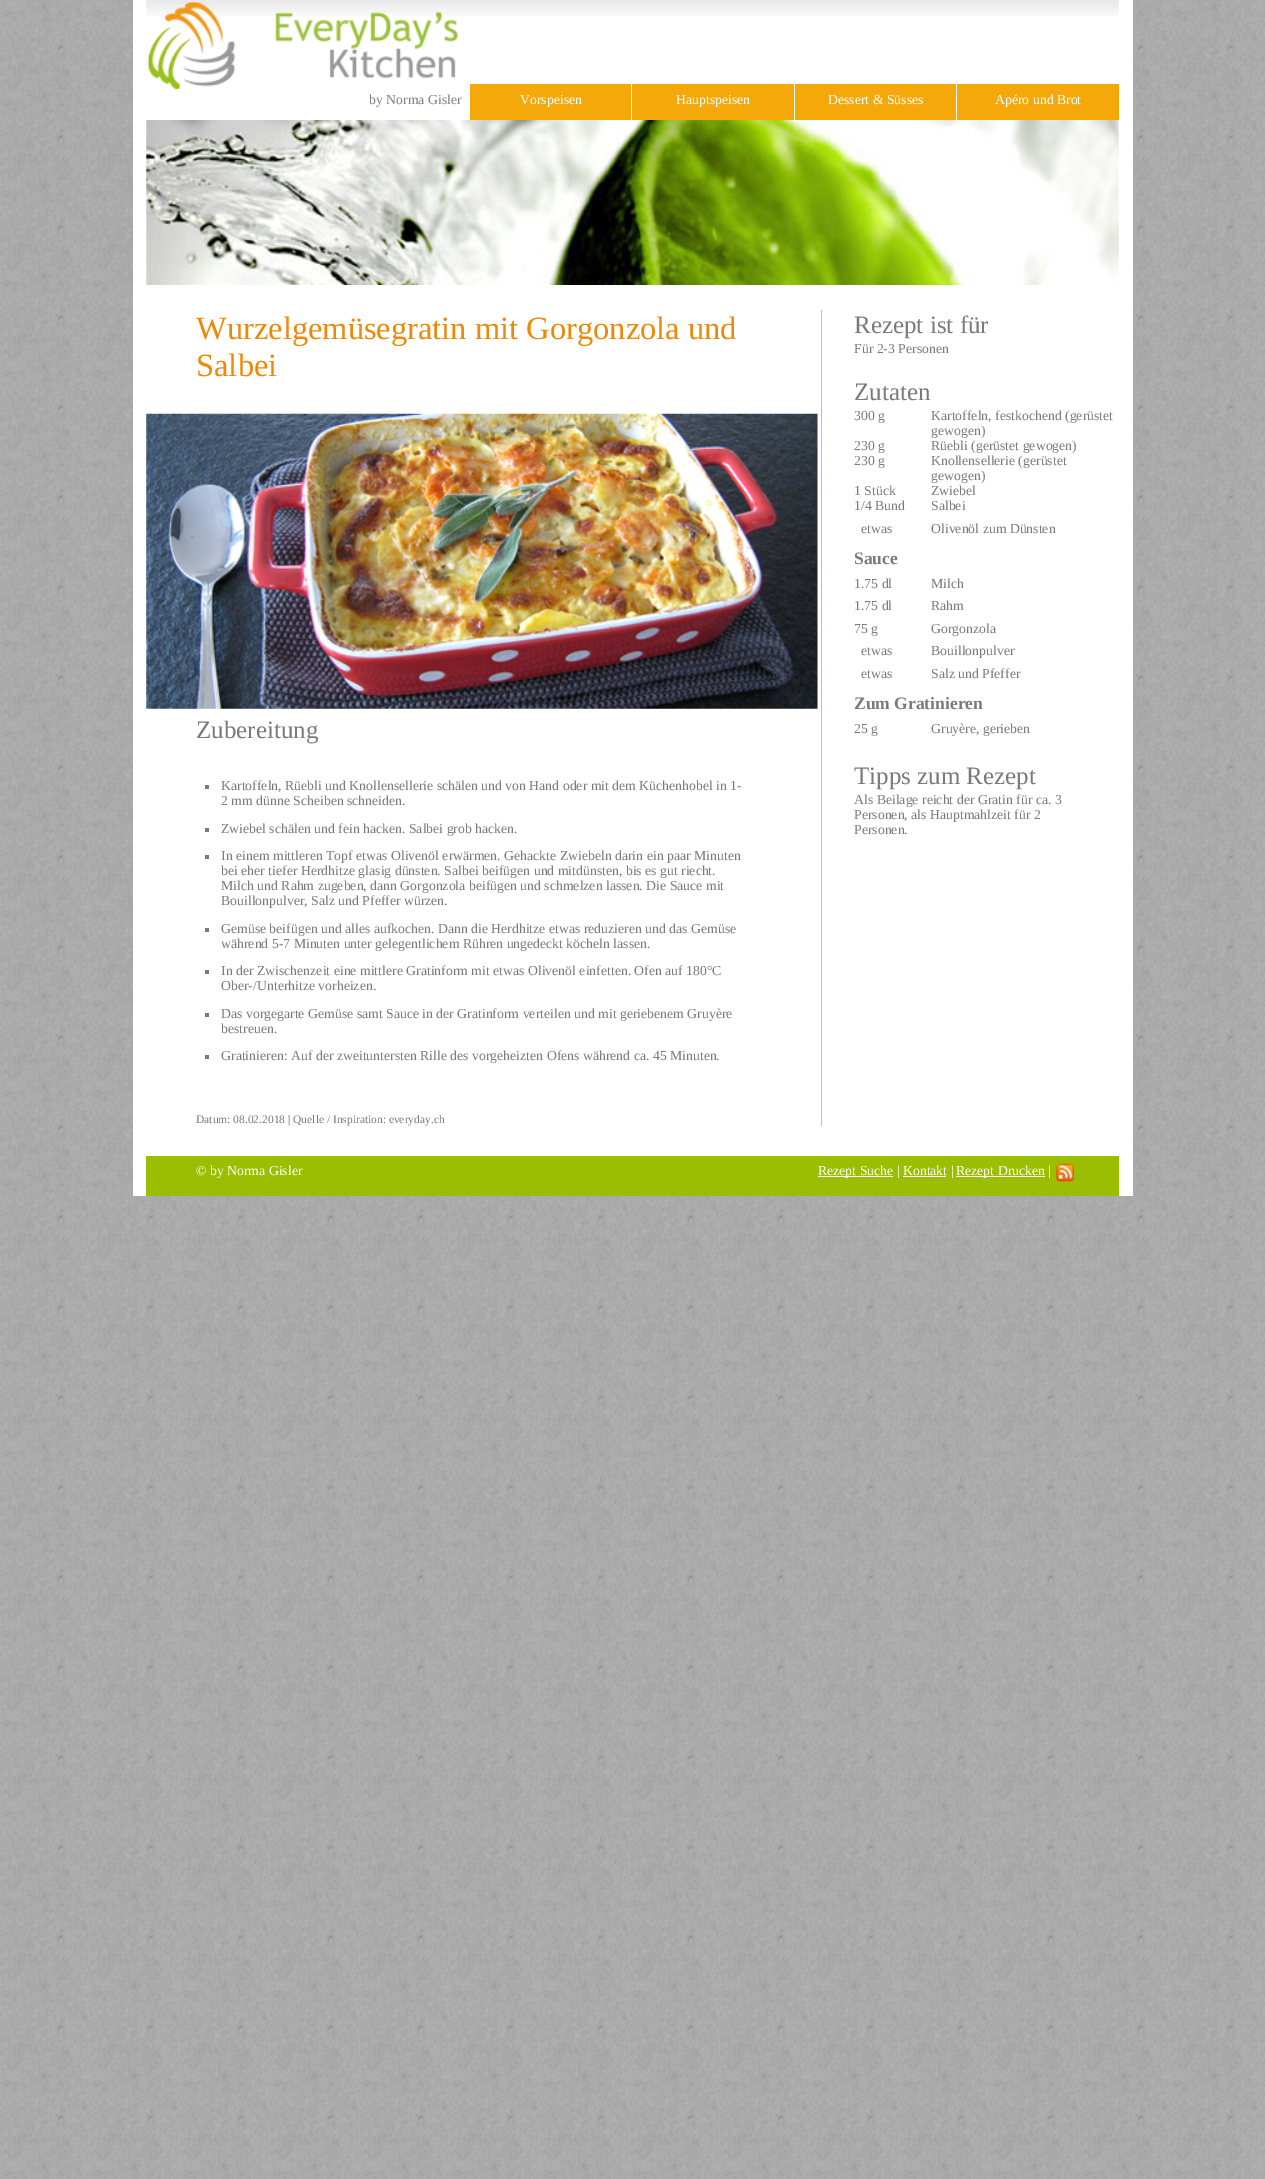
%!PS-Adobe-3.0
%%BoundingBox: 0 0 1265 2179
%%LanguageLevel: 3
%%Pages: 1
%%EndComments
%%BeginProlog
/fn { [ exch dup neg 0 0 3 -1 roll 0 0 ] selectfont } def
/tx { moveto show } def
/bx { rectfill } def
/im { 5 dict begin { /h /w /y /x /name } { exch def } forall
  gsave x y translate w h scale
  w h 8 [w 0 0 h 0 0] name (r) file false 3 colorimage grestore end } def
%%EndProlog
%%BeginSetup
<< /PageSize [1265 2179] >> setpagedevice
%%EndSetup
%%Page: 1 1
0 2179 translate 1 -1 scale
4 setmiterlimit
1 setgray
0 0 1265 2179 bx
(image0.raw) 0 0 1265 2179 im
133 0 1000 1196 bx
(image1.raw) 146 0 973 16 im
(image2.raw) 147 1 311 90 im
/LiberationSerif-Regular 13.75 fn
0.502 setgray
(by Norma Gisler) 369 104 tx
0.957 0.659 0.039 setrgbcolor
470 84 161 36 bx
1 setgray
(Vorspeisen) 520 104 tx
0.957 0.659 0.039 setrgbcolor
632 84 162 36 bx
1 setgray
(Hauptspeisen) 676 104 tx
0.957 0.659 0.039 setrgbcolor
795 84 161 36 bx
1 setgray
(Dessert & Süsses) 828 104 tx
0.957 0.659 0.039 setrgbcolor
957 84 162 36 bx
1 setgray
(Apéro und Brot) 995 104 tx
(image3.raw) 146 120 973 165 im
0.737 0.741 0.737 setrgbcolor
821 310 1 816 bx
/LiberationSerif-Regular 32.5 fn
0.933 0.537 0.027 setrgbcolor
(Wurzelgemüsegratin mit Gorgonzola und) 196 339 tx
(Salbei) 196 376 tx
(image4.raw) 146 413 672 296 im
/LiberationSerif-Regular 25 fn
0.475 0.482 0.478 setrgbcolor
(Zubereitung) 196 738 tx
205 785 4 4 bx
/LiberationSerif-Regular 13.75 fn
(Kartoffeln, Rüebli und Knollensellerie schälen und von Hand oder mit dem Küchenhobel in 1-) 221 790 tx
(2 mm dünne Scheiben schneiden.) 221 805 tx
205 828 4 4 bx
(Zwiebel schälen und fein hacken. Salbei grob hacken.) 221 833 tx
205 855 4 4 bx
(In einem mittleren Topf etwas Olivenöl erwärmen. Gehackte Zwiebeln darin ein paar Minuten) 221 860 tx
(bei eher tiefer Herdhitze glasig dünsten. Salbei beifügen und mitdünsten, bis es gut riecht.) 221 875 tx
(Milch und Rahm zugeben, dann Gorgonzola beifügen und schmelzen lassen. Die Sauce mit) 221 890 tx
(Bouillonpulver, Salz und Pfeffer würzen.) 221 905 tx
205 928 4 4 bx
(Gemüse beifügen und alles aufkochen. Dann die Herdhitze etwas reduzieren und das Gemüse) 221 933 tx
(während 5-7 Minuten unter gelegentlichem Rühren ungedeckt köcheln lassen.) 221 948 tx
205 970 4 4 bx
(In der Zwischenzeit eine mittlere Gratinform mit etwas Olivenöl einfetten. Ofen auf 180°C) 221 975 tx
(Ober-/Unterhitze vorheizen.) 221 990 tx
205 1013 4 4 bx
(Das vorgegarte Gemüse samt Sauce in der Gratinform verteilen und mit geriebenem Gruyère) 221 1018 tx
(bestreuen.) 221 1033 tx
205 1055 4 4 bx
(Gratinieren: Auf der zweituntersten Rille des vorgeheizten Ofens während ca. 45 Minuten.) 221 1060 tx
/LiberationSerif-Regular 11.5 fn
(Datum: 08.02.2018 | Quelle / Inspiration: everyday.ch) 196 1123 tx
/LiberationSerif-Regular 25 fn
(Rezept ist für) 854 333 tx
/LiberationSerif-Regular 13.75 fn
(Für 2-3 Personen) 854 353 tx
/LiberationSerif-Regular 25 fn
(Zutaten) 854 400 tx
/LiberationSerif-Regular 13.75 fn
(300 g) 854 420 tx
(Kartoffeln, festkochend \(gerüstet) 931 420 tx
(gewogen\)) 931 435 tx
(230 g) 854 450 tx
(Rüebli \(gerüstet gewogen\)) 931 450 tx
(230 g) 854 465 tx
(Knollensellerie \(gerüstet) 931 465 tx
(gewogen\)) 931 480 tx
(1 Stück) 854 495 tx
(Zwiebel) 931 495 tx
(1/4 Bund) 854 510 tx
(Salbei) 931 510 tx
(etwas) 861 533 tx
(Olivenöl zum Dünsten) 931 533 tx
/LiberationSerif-Bold 17.5 fn
(Sauce) 854 564 tx
/LiberationSerif-Regular 13.75 fn
(1.75 dl) 854 588 tx
(Milch) 931 588 tx
(1.75 dl) 854 610 tx
(Rahm) 931 610 tx
(75 g) 854 633 tx
(Gorgonzola) 931 633 tx
(etwas) 861 655 tx
(Bouillonpulver) 931 655 tx
(etwas) 861 678 tx
(Salz und Pfeffer) 931 678 tx
/LiberationSerif-Bold 17.5 fn
(Zum Gratinieren) 854 709 tx
/LiberationSerif-Regular 13.75 fn
(25 g) 854 733 tx
(Gruyère, gerieben) 931 733 tx
/LiberationSerif-Regular 25 fn
(Tipps zum Rezept) 854 784 tx
/LiberationSerif-Regular 13.75 fn
(Als Beilage reicht der Gratin für ca. 3) 854 804 tx
(Personen, als Hauptmahlzeit für 2) 854 819 tx
(Personen.) 854 834 tx
0.608 0.745 0 setrgbcolor
146 1156 973 40 bx
1 setgray
(© by Norma Gisler) 196 1175 tx
818 1176 75 1 bx
(Rezept Suche | Kontakt |) 818 1175 tx
956 1176 89 1 bx
(Rezept Drucken |) 956 1175 tx
(image5.raw) 1056 1163 18 19 im
903 1176 43 1 bx
showpage
%%EOF
